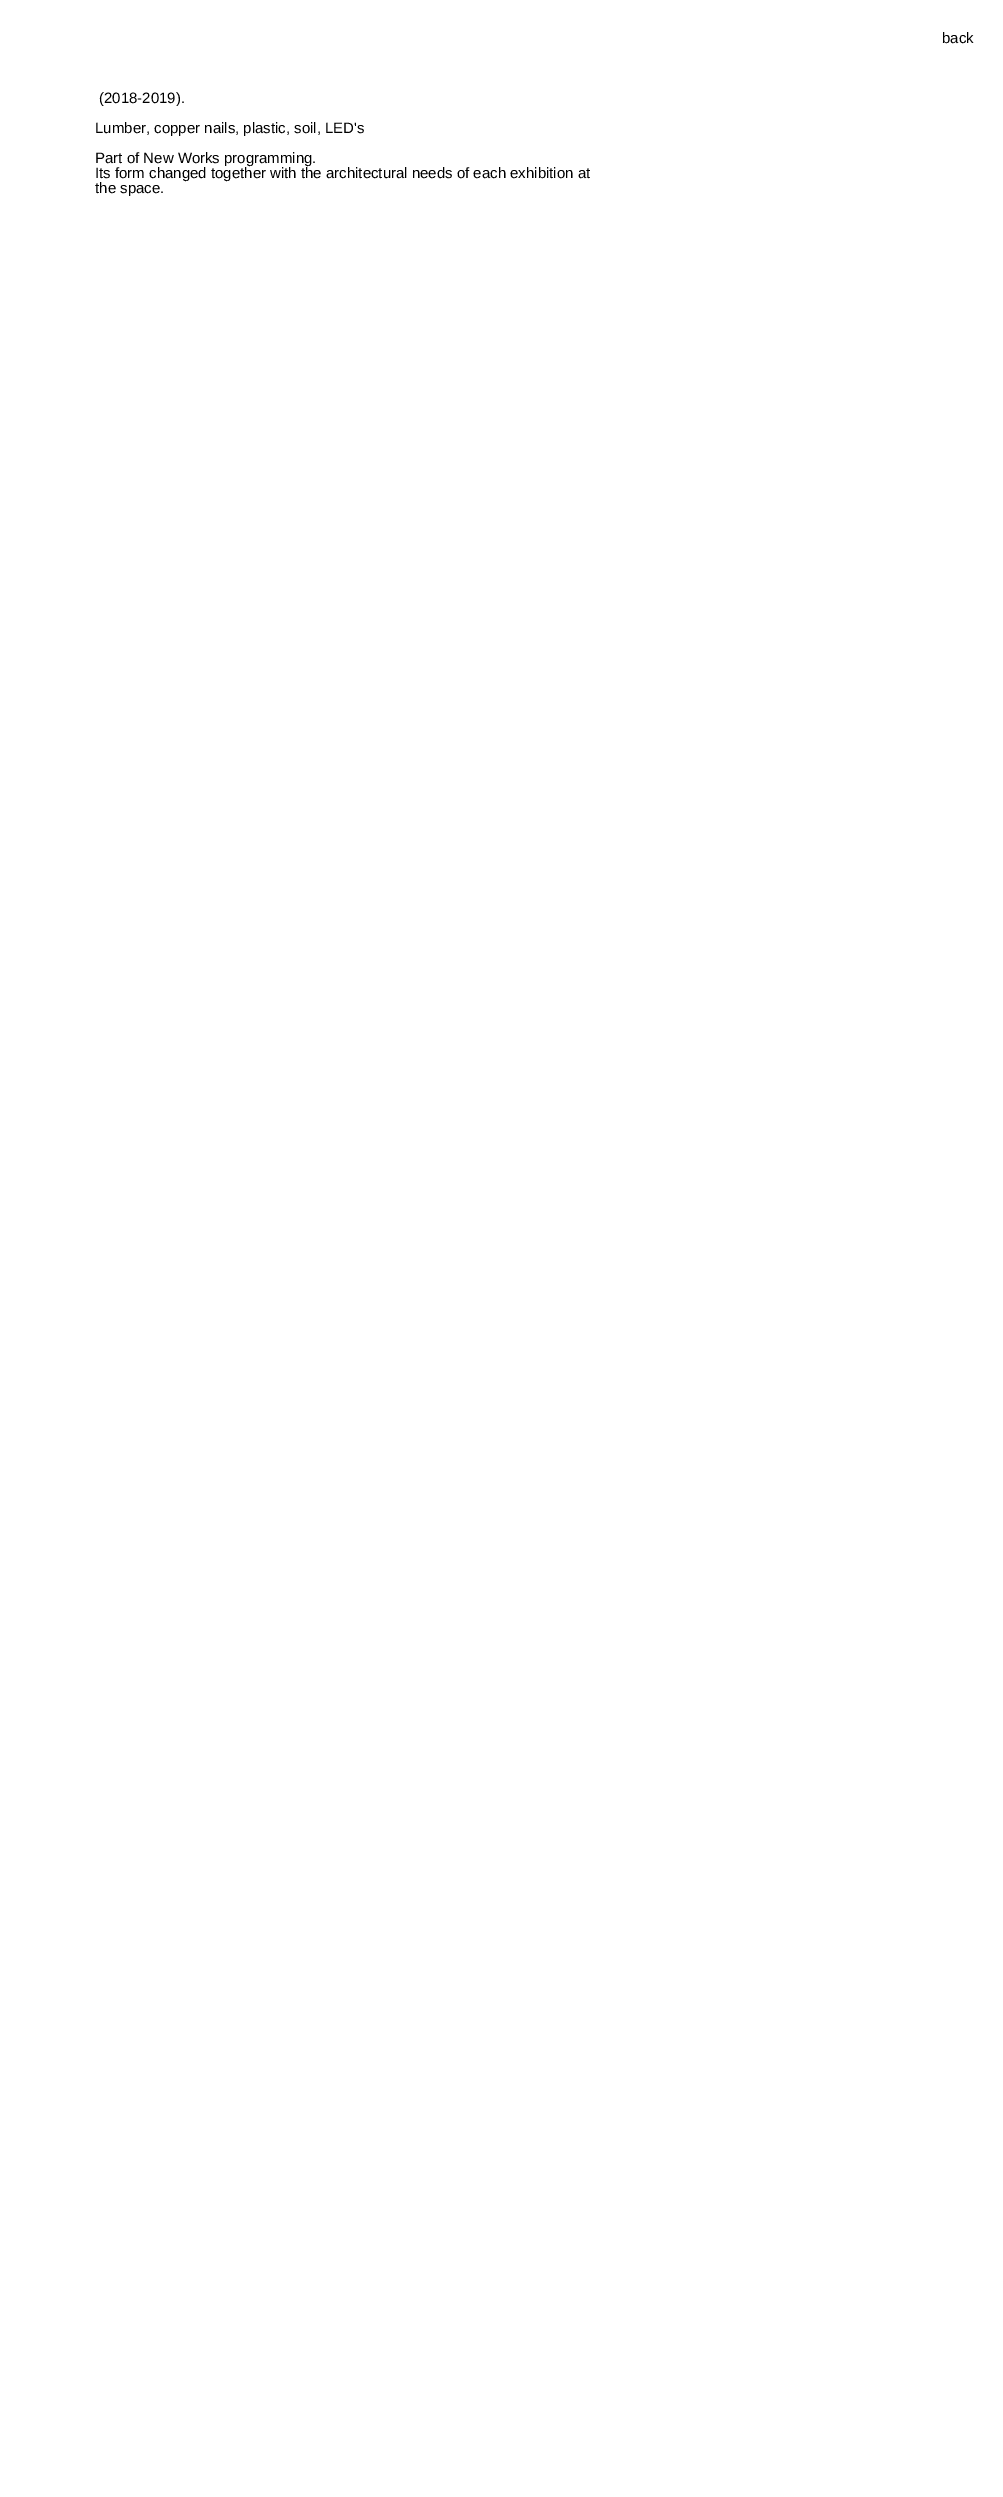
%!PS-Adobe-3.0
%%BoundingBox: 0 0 1003 2497
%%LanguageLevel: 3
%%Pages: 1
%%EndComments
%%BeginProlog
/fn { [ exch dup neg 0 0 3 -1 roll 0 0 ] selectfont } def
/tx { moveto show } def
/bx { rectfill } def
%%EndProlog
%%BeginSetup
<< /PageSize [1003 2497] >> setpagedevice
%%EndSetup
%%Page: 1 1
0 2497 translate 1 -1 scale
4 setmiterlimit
1 setgray
0 0 1003 2497 bx
/LiberationSans-Regular 15 fn
0 setgray
(back) 942 43 tx
(\(2018-2019\).) 99 103 tx
(Lumber, copper nails, plastic, soil, LED's) 95 133 tx
(Part of New Works programming.) 95 163 tx
(Its form changed together with the architectural needs of each exhibition at) 95 178 tx
(the space.) 95 193 tx
showpage
%%EOF
